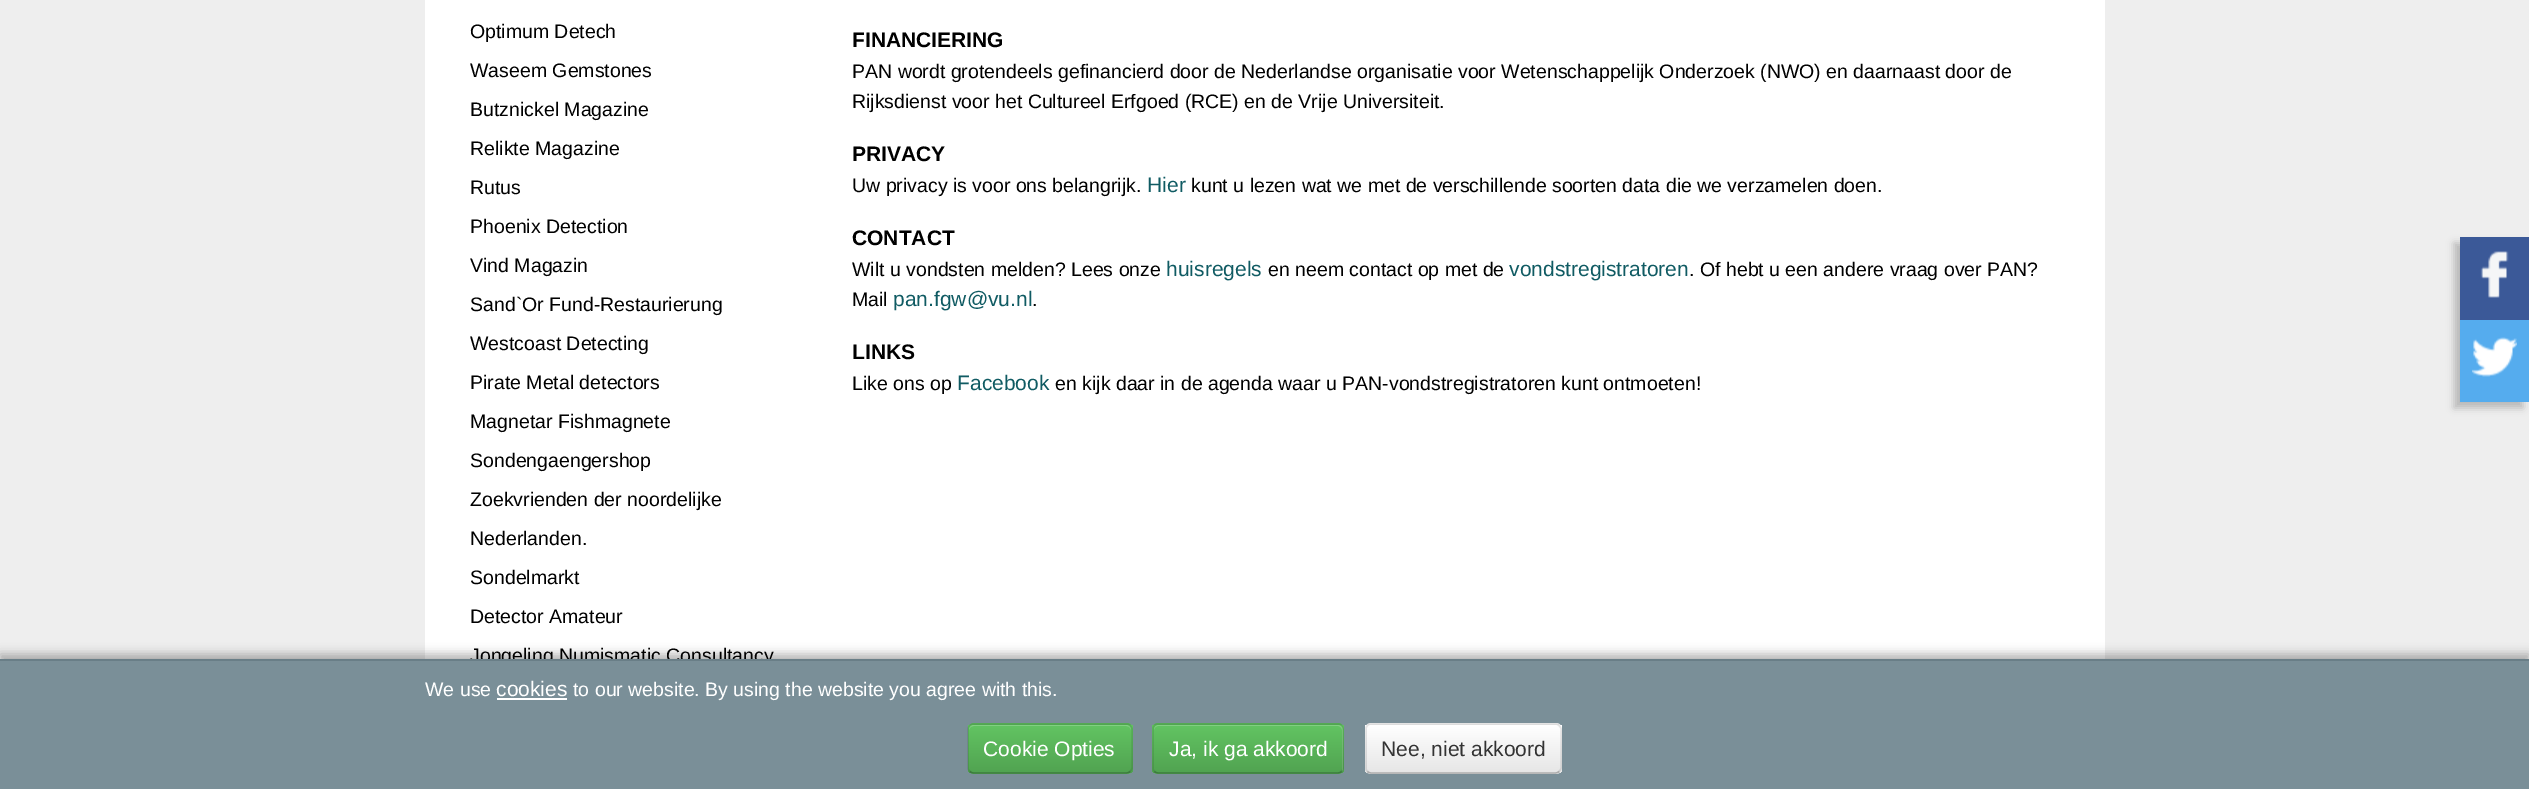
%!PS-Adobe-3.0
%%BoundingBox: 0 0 2529 789
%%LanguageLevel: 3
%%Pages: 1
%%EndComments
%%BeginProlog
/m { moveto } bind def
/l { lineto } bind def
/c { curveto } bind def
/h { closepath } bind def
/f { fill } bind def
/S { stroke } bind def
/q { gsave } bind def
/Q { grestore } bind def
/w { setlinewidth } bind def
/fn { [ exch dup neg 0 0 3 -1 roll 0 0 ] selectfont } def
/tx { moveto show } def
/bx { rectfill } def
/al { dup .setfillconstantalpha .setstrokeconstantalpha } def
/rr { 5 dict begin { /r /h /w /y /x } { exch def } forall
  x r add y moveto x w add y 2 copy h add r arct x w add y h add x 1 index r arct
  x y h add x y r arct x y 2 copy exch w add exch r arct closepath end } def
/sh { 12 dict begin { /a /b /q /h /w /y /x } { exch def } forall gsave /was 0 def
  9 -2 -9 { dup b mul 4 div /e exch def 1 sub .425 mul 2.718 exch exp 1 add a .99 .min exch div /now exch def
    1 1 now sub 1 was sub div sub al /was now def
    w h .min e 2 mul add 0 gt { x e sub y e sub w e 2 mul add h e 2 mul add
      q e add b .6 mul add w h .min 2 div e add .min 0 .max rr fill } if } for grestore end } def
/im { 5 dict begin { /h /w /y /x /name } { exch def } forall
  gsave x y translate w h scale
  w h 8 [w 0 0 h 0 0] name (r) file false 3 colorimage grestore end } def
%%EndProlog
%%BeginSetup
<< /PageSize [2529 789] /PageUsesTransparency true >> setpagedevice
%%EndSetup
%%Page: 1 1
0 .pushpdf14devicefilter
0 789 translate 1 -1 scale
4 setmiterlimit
0.933 setgray
0 0 2529 789 bx
1 setgray
425 0 1680 659 bx
/LiberationSans-Regular 19.5 fn
0 setgray
(Optimum Detech) 470 38 tx
(Waseem Gemstones) 470 77 tx
(Butznickel Magazine) 470 116 tx
(Relikte Magazine) 470 155 tx
(Rutus) 470 194 tx
(Phoenix Detection) 470 233 tx
(Vind Magazin) 470 272 tx
(Sand`Or Fund-Restaurierung) 470 311 tx
(Westcoast Detecting) 470 350 tx
(Pirate Metal detectors) 470 389 tx
(Magnetar Fishmagnete) 470 428 tx
(Sondengaengershop) 470 467 tx
(Zoekvrienden der noordelijke) 470 506 tx
(Nederlanden.) 470 545 tx
(Sondelmarkt) 470 584 tx
(Detector Amateur) 470 623 tx
(Jongeling Numismatic Consultancy) 470 662 tx
/LiberationSans-Bold 21 fn
(FINANCIERING) 852 47 tx
/LiberationSans-Regular 19.5 fn
(PAN wordt grotendeels gefinancierd door de Nederlandse organisatie voor Wetenschappelijk Onderzoek \(NWO\) en daarnaast door de) 852 78 tx
(Rijksdienst voor het Cultureel Erfgoed \(RCE\) en de Vrije Universiteit.) 852 108 tx
/LiberationSans-Bold 21 fn
(PRIVACY) 852 161 tx
/LiberationSans-Regular 19.5 fn
(Uw privacy is voor ons belangrijk.) 852 192 tx
/LiberationSans-Regular 21 fn
0.063 0.357 0.388 setrgbcolor
(Hier) 1147 192 tx
/LiberationSans-Regular 19.5 fn
0 setgray
(kunt u lezen wat we met de verschillende soorten data die we verzamelen doen.) 1191 192 tx
/LiberationSans-Bold 21 fn
(CONTACT) 852 245 tx
/LiberationSans-Regular 19.5 fn
(Wilt u vondsten melden? Lees onze) 852 276 tx
/LiberationSans-Regular 21 fn
0.063 0.357 0.388 setrgbcolor
(huisregels) 1166 276 tx
/LiberationSans-Regular 19.5 fn
0 setgray
(en neem contact op met de) 1268 276 tx
/LiberationSans-Regular 21 fn
0.063 0.357 0.388 setrgbcolor
(vondstregistratoren) 1509 276 tx
/LiberationSans-Regular 19.5 fn
0 setgray
(. Of hebt u een andere vraag over PAN?) 1689 276 tx
(Mail) 852 306 tx
/LiberationSans-Regular 21 fn
0.063 0.357 0.388 setrgbcolor
(pan.fgw@vu.nl) 893 306 tx
/LiberationSans-Regular 19.5 fn
0 setgray
(.) 1032 306 tx
/LiberationSans-Bold 21 fn
(LINKS) 852 359 tx
/LiberationSans-Regular 19.5 fn
(Like ons op) 852 390 tx
/LiberationSans-Regular 21 fn
0.063 0.357 0.388 setrgbcolor
(Facebook) 957 390 tx
/LiberationSans-Regular 19.5 fn
0 setgray
(en kijk daar in de agenda waar u PAN-vondstregistratoren kunt ontmoeten!) 1055 390 tx
0.196 setgray
2454 243 69 165 0 4 0.3 sh
0.231 0.349 0.596 setrgbcolor
2460 237 69 83 bx
(image0.raw) 2480 251 29 47 im
0.333 0.675 0.933 setrgbcolor
2460 320 69 82 bx
(image1.raw) 2472 337 45 40 im
0 setgray
0 654 2529 131 0 5 0.3 sh
0.478 0.561 0.596 setrgbcolor
0 661 2529 128 bx
0.412 0.494 0.529 setrgbcolor
0 659 2529 2 bx
1 setgray
(We use) 425 696 tx
/LiberationSans-Regular 21 fn
(cookies) 496 696 tx
497 698 70 2 bx
/LiberationSans-Regular 19.5 fn
(to our website. By using the website you agree with this.) 573 696 tx
0.357 0.718 0.357 setrgbcolor
968 723 165 51 6 rr f
q
968 723 165 51 6 rr clip newpath
q 968 725 m 1133 725 l 1133 773 l 968 773 l h clip newpath
<< /ShadingType 2 /ColorSpace /DeviceRGB /Coords [1050 725 1050 773] /Extend [true true] /Function << /FunctionType 2 /Domain [0 1] /C0 [0.384 0.769 0.384] /C1 [0.318 0.639 0.318] /N 1 >> >> shfill Q
Q
0.506 0.816 0.506 setrgbcolor
974 726 m 1126 726 l 1129 726 1131 728 1131 730 c 1131 727 1129 725 1126 725 c 974 725 l 971 725 969 727 969 730 c 969 728 971 726 974 726 c h f
0.25 al
0 setgray
1.5 w
1130 771.5 m 1129 772.5 1128 773 1126.5 773 c 973.5 773 l 972 773 971 772.5 970 771.5 c S
0.1 al
970 771.5 m 969 770.5 968 769.5 968 768 c 968 729 l 968 727.5 969 726.5 970 725.5 c 971 724.5 972 724 973.5 724 c 1126.5 724 l 1128 724 1129 724.5 1130 725.5 c 1131 726.5 1132 727.5 1132 729 c 1132 768 l 1132 769.5 1131 770.5 1130 771.5 c S
/LiberationSans-Regular 21 fn
1 al
1 setgray
(Cookie Opties) 983 756 tx
0.357 0.718 0.357 setrgbcolor
1152 723 192 51 6 rr f
q
1152 723 192 51 6 rr clip newpath
q 1152 725 m 1344 725 l 1344 773 l 1152 773 l h clip newpath
<< /ShadingType 2 /ColorSpace /DeviceRGB /Coords [1248 725 1248 773] /Extend [true true] /Function << /FunctionType 2 /Domain [0 1] /C0 [0.384 0.769 0.384] /C1 [0.318 0.639 0.318] /N 1 >> >> shfill Q
Q
0.2 al
1 setgray
1158 726 m 1338 726 l 1340 726 1342 728 1342 730 c 1342 771 l 1343 770 1343 769 1343 768 c 1343 730 l 1343 727 1341 725 1338 725 c 1159 725 l 1156 725 1154 727 1154 730 c 1154 728 1156 726 1158 726 c h f
0.25 al
0 setgray
1341.5 771.5 m 1340.5 772.5 1339.5 773 1338 773 c 1158 773 l 1156.5 773 1155.5 772.5 1154.5 771.5 c S
0.1 al
1154.5 771.5 m 1153.5 770.5 1153 769.5 1153 768 c 1153 729 l 1153 727.5 1153.5 726.5 1154.5 725.5 c 1155.5 724.5 1156.5 724 1158 724 c 1338 724 l 1339.5 724 1340.5 724.5 1341.5 725.5 c 1342.5 726.5 1343 727.5 1343 729 c 1343 768 l 1343 769.5 1342.5 770.5 1341.5 771.5 c S
1 al
1 setgray
(Ja, ik ga akkoord) 1169 756 tx
0.961 setgray
1365 723 197 51 6 rr f
q
1365 723 197 51 6 rr clip newpath
q 1365 725 m 1562 725 l 1562 773 l 1365 773 l h clip newpath
<< /ShadingType 2 /ColorSpace /DeviceRGB /Coords [1463 725 1463 773] /Extend [true true] /Function << /FunctionType 2 /Domain [0 1] /C0 [1 1 1] /C1 [0.902 0.902 0.902] /N 1 >> >> shfill Q
Q
0.25 al
0 setgray
1559 771.5 m 1558 772.5 1557 773 1555.5 773 c 1371 773 l 1369.5 773 1368.5 772.5 1367.5 771.5 c S
0.1 al
1367.5 771.5 m 1366.5 770.5 1366 769.5 1366 768 c 1366 729 l 1366 727.5 1366.5 726.5 1367.5 725.5 c 1368.5 724.5 1369.5 724 1371 724 c 1555.5 724 l 1557 724 1558 724.5 1559 725.5 c 1560 726.5 1561 727.5 1561 729 c 1561 768 l 1561 769.5 1560 770.5 1559 771.5 c S
1 al
0.2 setgray
(Nee, niet akkoord) 1381 756 tx
.poppdf14devicefilter showpage
%%EOF
